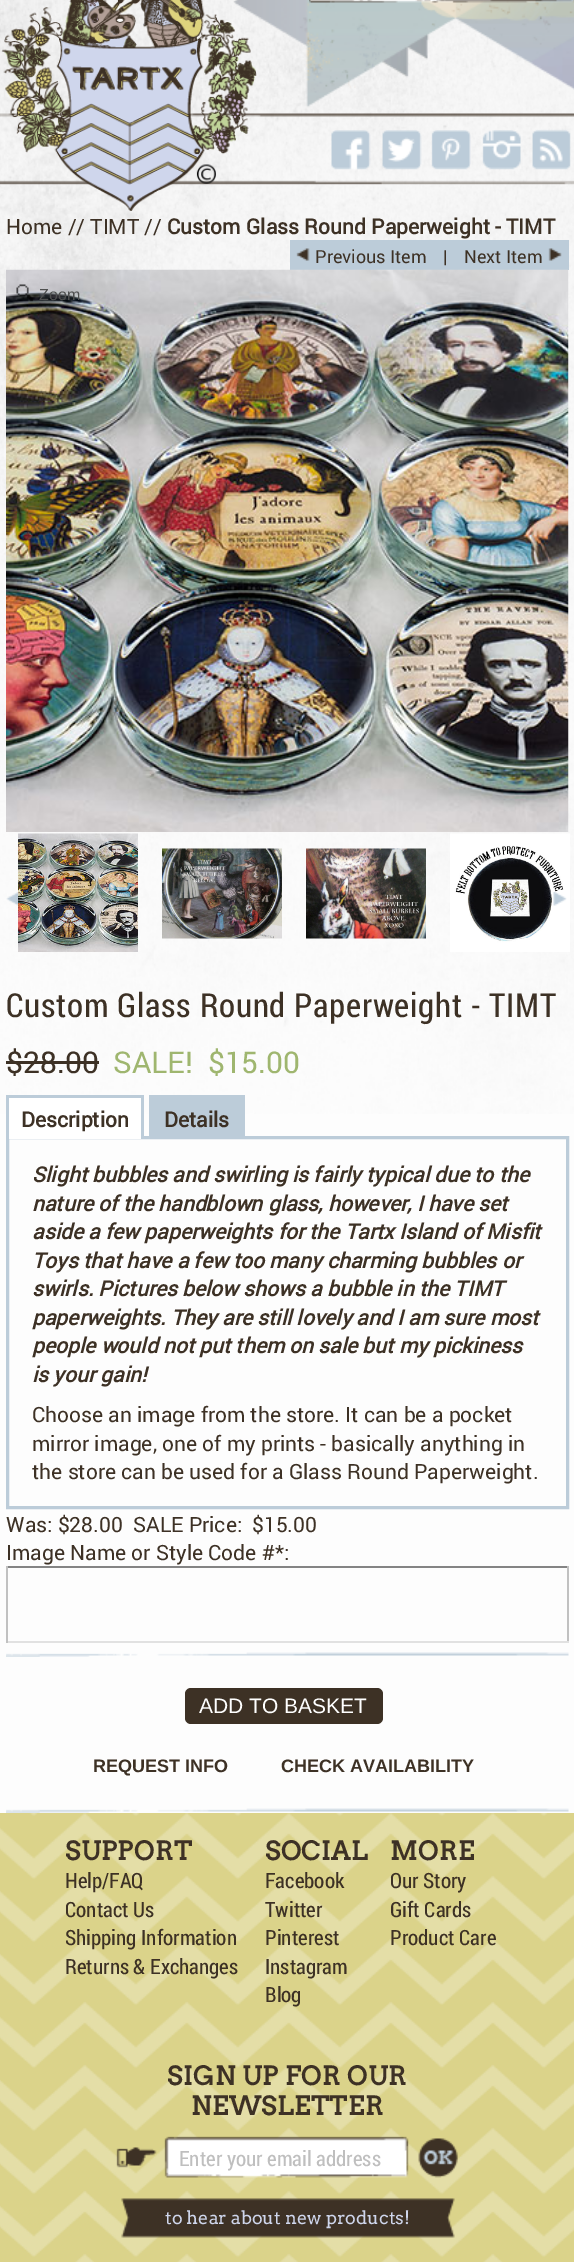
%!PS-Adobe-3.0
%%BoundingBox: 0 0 574 2262
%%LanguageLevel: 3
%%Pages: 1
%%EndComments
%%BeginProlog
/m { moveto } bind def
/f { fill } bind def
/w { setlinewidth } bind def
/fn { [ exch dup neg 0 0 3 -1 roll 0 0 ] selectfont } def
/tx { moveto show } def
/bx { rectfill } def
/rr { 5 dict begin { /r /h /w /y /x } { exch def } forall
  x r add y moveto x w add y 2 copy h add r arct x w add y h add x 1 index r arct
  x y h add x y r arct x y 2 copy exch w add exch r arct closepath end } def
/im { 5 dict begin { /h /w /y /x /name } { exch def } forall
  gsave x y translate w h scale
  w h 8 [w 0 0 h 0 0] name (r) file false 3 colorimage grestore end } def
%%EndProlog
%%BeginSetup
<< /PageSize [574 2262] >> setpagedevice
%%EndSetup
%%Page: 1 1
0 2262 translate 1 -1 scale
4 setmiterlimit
0.992 setgray
0 0 574 2262 bx
(image0.raw) 0 0 574 1114 im
(image1.raw) 233 0 341 107 im
(image9.raw) 0 113 574 72 im
(image2.raw) 1 0 256 211 im
(image3.raw) 309 0 265 3 im
(image4.raw) 331 130 40 40 im
(image5.raw) 382 130 40 40 im
(image6.raw) 431 130 40 40 im
(image7.raw) 482 130 39 40 im
(image8.raw) 532 129 39 41 im
/Roboto-Regular 21 fn
0.239 0.192 0.145 setrgbcolor
(Home // TIMT //) 6 234 tx
/Roboto-Bold 21 fn
(Custom Glass Round Paperweight - TIMT) 167 234 tx
0.737 0.8 0.851 setrgbcolor
290 240 279 30 bx
(image10.raw) 296 248 14 13 im
/Roboto-Regular 18 fn
0.239 0.192 0.145 setrgbcolor
(Previous Item) 315 263 tx
(|) 443 263 tx
(image11.raw) 548 248 14 13 im
(Next Item) 464 263 tx
(image12.raw) 6 269 563 563 im
(image13.raw) 16 284 18 18 im
/LiberationSans-Regular 16 fn
0.306 0.31 0.31 setrgbcolor
(Zoom) 39 300 tx
(image14.raw) 6 892 12 14 im
(image15.raw) 18 833 120 119 im
(image16.raw) 162 848 120 91 im
(image17.raw) 306 848 120 91 im
(image18.raw) 450 833 120 119 im
(image19.raw) 553 892 14 14 im
/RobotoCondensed-Regular 33 fn
0.239 0.192 0.145 setrgbcolor
6 1017 m 0.75 0 (Custom Glass Round Paperweight - TIMT) ashow
/Roboto-Regular 30 fn
($28.00) 6 1073 tx
6 1061 93 3 bx
0.624 0.714 0.435 setrgbcolor
(SALE!  $15.00) 113 1073 tx
0.737 0.8 0.851 setrgbcolor
3 w
7.5 1137.5 560 370 rectstroke
1 setgray
9 1098 132 41 bx
0.737 0.8 0.851 setrgbcolor
6 1095 138 3 bx
141 1095 3 44 bx
6 1095 3 44 bx
/Roboto-Bold 21 fn
0.239 0.192 0.145 setrgbcolor
(Description) 21 1127 tx
0.737 0.8 0.851 setrgbcolor
149 1095 96 41 bx
0.239 0.192 0.145 setrgbcolor
(Details) 164 1127 tx
/Roboto-BoldItalic 21 fn
(Slight bubbles and swirling is fairly typical due to the) 32 1182 tx
(nature of the handblown glass, however, I have set) 32 1211 tx
(aside a few paperweights for the Tartx Island of Misfit) 32 1239 tx
(Toys that have a few too many charming bubbles or) 32 1268 tx
(swirls. Pictures below shows a bubble in the TIMT) 32 1296 tx
(paperweights. They are still lovely and I am sure most) 32 1325 tx
(people would not put them on sale but my pickiness) 32 1353 tx
(is your gain!) 32 1382 tx
/Roboto-Regular 21 fn
(Choose an image from the store. It can be a pocket) 32 1422 tx
(mirror image, one of my prints - basically anything in) 32 1451 tx
(the store can be used for a Glass Round Paperweight.) 32 1479 tx
(Was: $28.00) 6 1532 tx
(SALE Price:) 133 1532 tx
($15.00) 252 1532 tx
(Image Name or Style Code #*:) 6 1560 tx
(image20.raw) 6 1652 563 5 im
0.518 setgray
6 1566 563 2 bx
0.757 setgray
567 1566 2 77 bx
0.882 setgray
6 1641 563 2 bx
0.757 setgray
6 1566 2 77 bx
(image20.raw) 6 1808 563 5 im
0.239 0.192 0.145 setrgbcolor
185 1688 198 36 6 rr f
/LiberationSans-Regular 21 fn
1 setgray
(ADD TO BASKET) 199 1713 tx
/LiberationSans-Bold 18 fn
0.239 0.192 0.145 setrgbcolor
(REQUEST INFO) 93 1772 tx
(CHECK AVAILABILITY) 281 1772 tx
(image21.raw) 0 1813 574 449 im
/Arvo-Bold 25.5 fn
65 1860 m 0.75 0 (SUPPORT) ashow
/RobotoCondensed-Regular 21 fn
(Help/FAQ) 65 1888 tx
(Contact Us) 65 1917 tx
(Shipping Information) 65 1945 tx
(Returns & Exchanges) 65 1974 tx
/Arvo-Bold 25.5 fn
265 1860 m 0.75 0 (SOCIAL) ashow
/RobotoCondensed-Regular 21 fn
(Facebook) 265 1888 tx
(Twitter) 265 1917 tx
(Pinterest) 265 1945 tx
(Instagram) 265 1974 tx
(Blog) 265 2002 tx
/Arvo-Bold 25.5 fn
390 1860 m 0.75 0 (MORE) ashow
/RobotoCondensed-Regular 21 fn
(Our Story) 390 1888 tx
(Gift Cards) 390 1917 tx
(Product Care) 390 1945 tx
/Arvo-Bold 25.5 fn
167 2085 m 0.75 0 (SIGN UP FOR OUR) ashow
191 2115 m 0.75 0 (NEWSLETTER) ashow
(image22.raw) 116 2147 41 21 im
(image23.raw) 164 2136 245 42 im
/RobotoCondensed-Regular 21 fn
0.749 setgray
(Enter your email address) 179 2166 tx
(image24.raw) 418 2138 40 40 im
(image25.raw) 121 2198 334 40 im
/Arvo-Regular 18 fn
0.812 0.839 0.925 setrgbcolor
(to hear about new products!) 165 2224 tx
showpage
%%EOF
